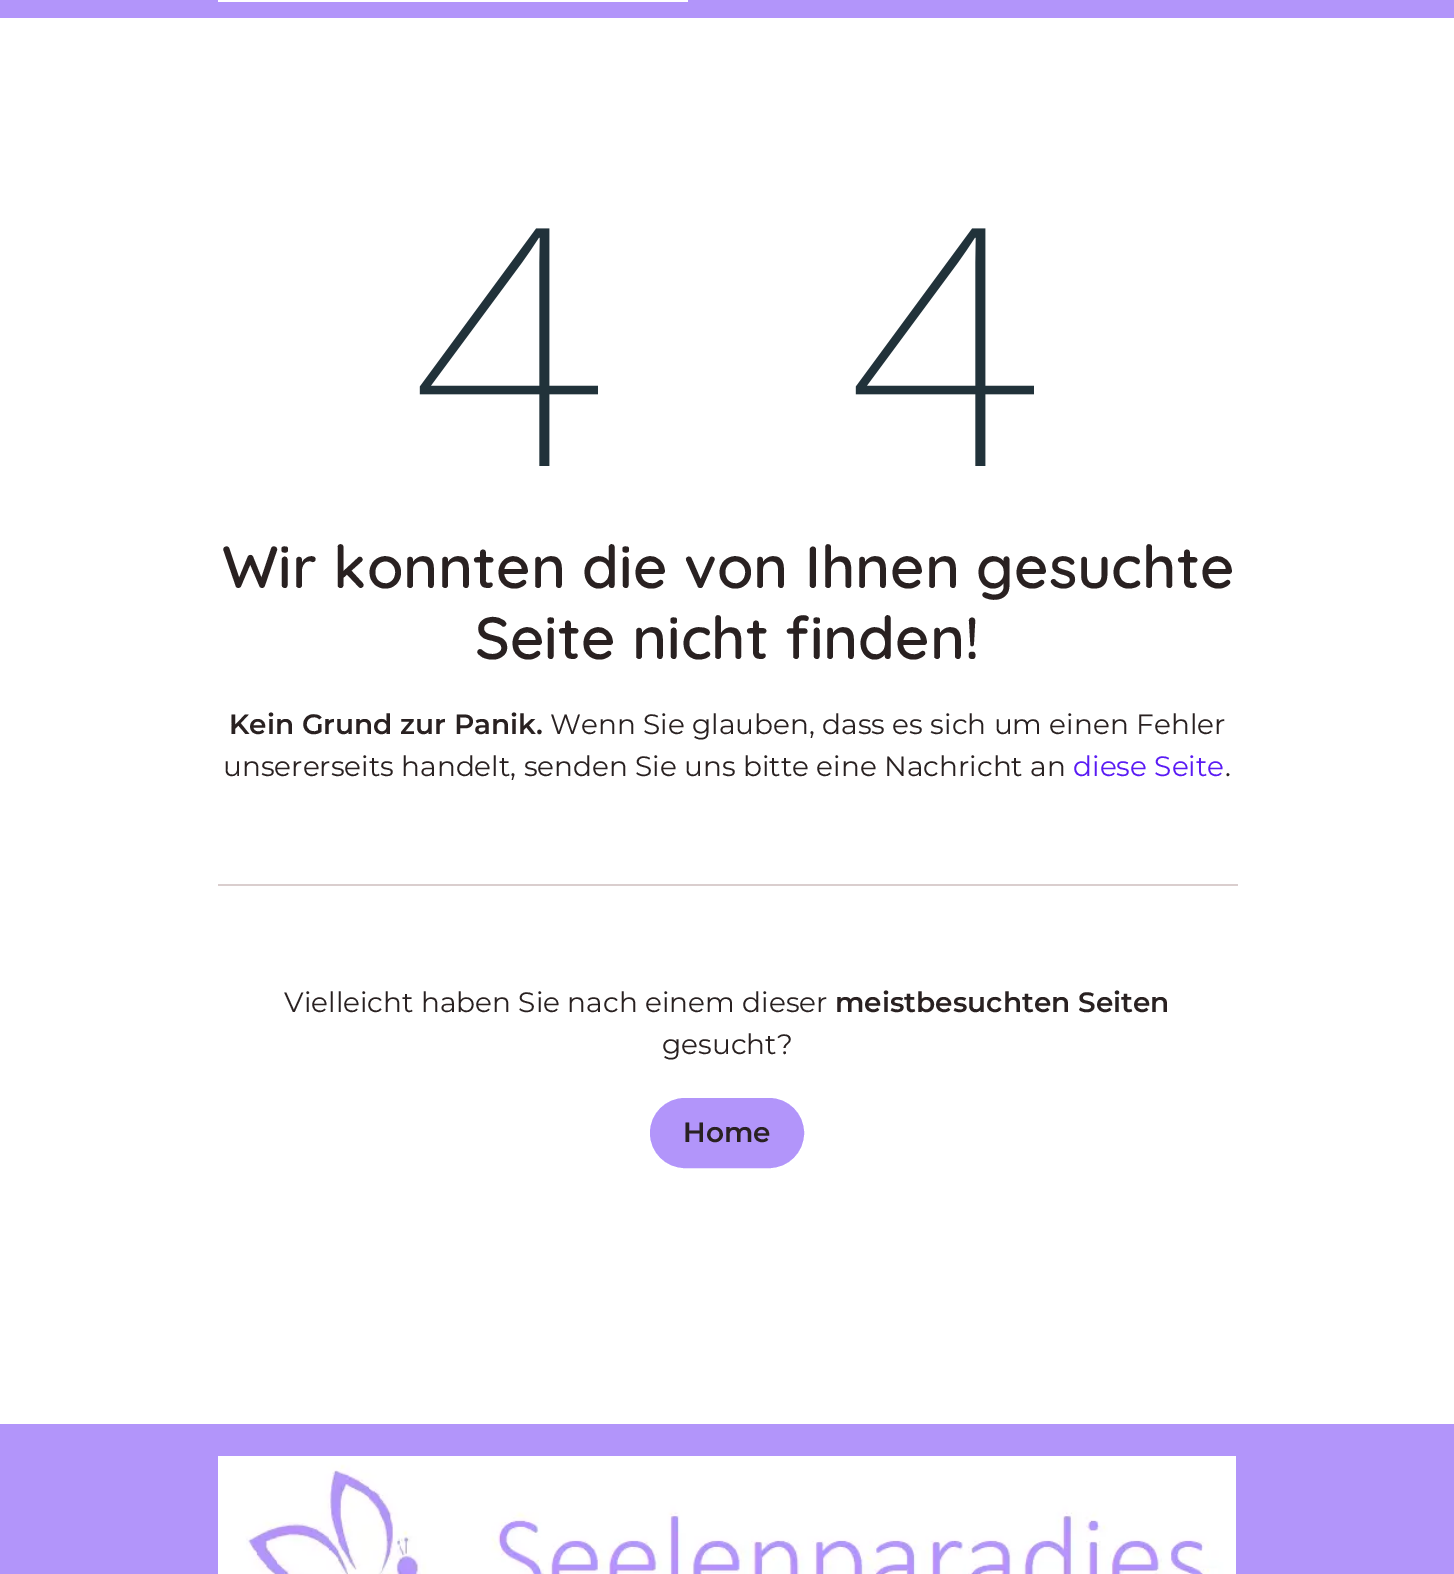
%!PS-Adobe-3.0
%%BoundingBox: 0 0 1454 1574
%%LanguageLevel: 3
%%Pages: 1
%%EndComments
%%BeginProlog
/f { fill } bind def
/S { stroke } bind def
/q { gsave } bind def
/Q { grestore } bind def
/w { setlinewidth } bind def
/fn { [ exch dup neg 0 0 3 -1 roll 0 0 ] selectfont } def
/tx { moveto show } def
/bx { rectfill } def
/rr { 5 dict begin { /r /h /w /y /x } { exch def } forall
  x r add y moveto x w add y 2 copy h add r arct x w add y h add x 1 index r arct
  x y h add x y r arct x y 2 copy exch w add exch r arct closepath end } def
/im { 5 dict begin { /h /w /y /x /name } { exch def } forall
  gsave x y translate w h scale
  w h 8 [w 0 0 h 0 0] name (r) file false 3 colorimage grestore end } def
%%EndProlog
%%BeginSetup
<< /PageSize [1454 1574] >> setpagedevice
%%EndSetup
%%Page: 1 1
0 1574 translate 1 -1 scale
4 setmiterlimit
1 setgray
0 0 1454 1574 bx
0.698 0.584 0.98 setrgbcolor
0 0 1454 18 bx
1 setgray
218 0 470 2 bx
(image0.raw) 419 228 615 238 im
/Quicksand-SemiBold 59.4 fn
0.161 0.129 0.129 setrgbcolor
(Wir konnten die von Ihnen gesuchte) 222 588 tx
(Seite nicht finden!) 475 659 tx
/Montserrat-SemiBold 28 fn
(Kein Grund zur Panik.) 229 734 tx
/Montserrat-Regular 28 fn
(Wenn Sie glauben, dass es sich um einen Fehler) 550 734 tx
(unsererseits handelt, senden Sie uns bitte eine Nachricht an) 223 776 tx
0.353 0.106 0.957 setrgbcolor
(diese Seite) 1073 776 tx
0.161 0.129 0.129 setrgbcolor
(.) 1225 776 tx
0.855 0.808 0.808 setrgbcolor
218 884 1020 2 bx
0.161 0.129 0.129 setrgbcolor
(Vielleicht haben Sie nach einem dieser) 284 1012 tx
/Montserrat-SemiBold 28 fn
(meistbesuchten Seiten) 835 1012 tx
/Montserrat-Regular 28 fn
(gesucht?) 662 1054 tx
0.698 0.584 0.98 setrgbcolor
651 1099 152 68 34 rr q f Q
2 w
S
/Montserrat-SemiBold 28 fn
0.161 0.129 0.129 setrgbcolor
(Home) 683 1142 tx
0.698 0.584 0.98 setrgbcolor
0 1424 1454 150 bx
(image1.raw) 218 1456 1018 118 im
showpage
%%EOF
